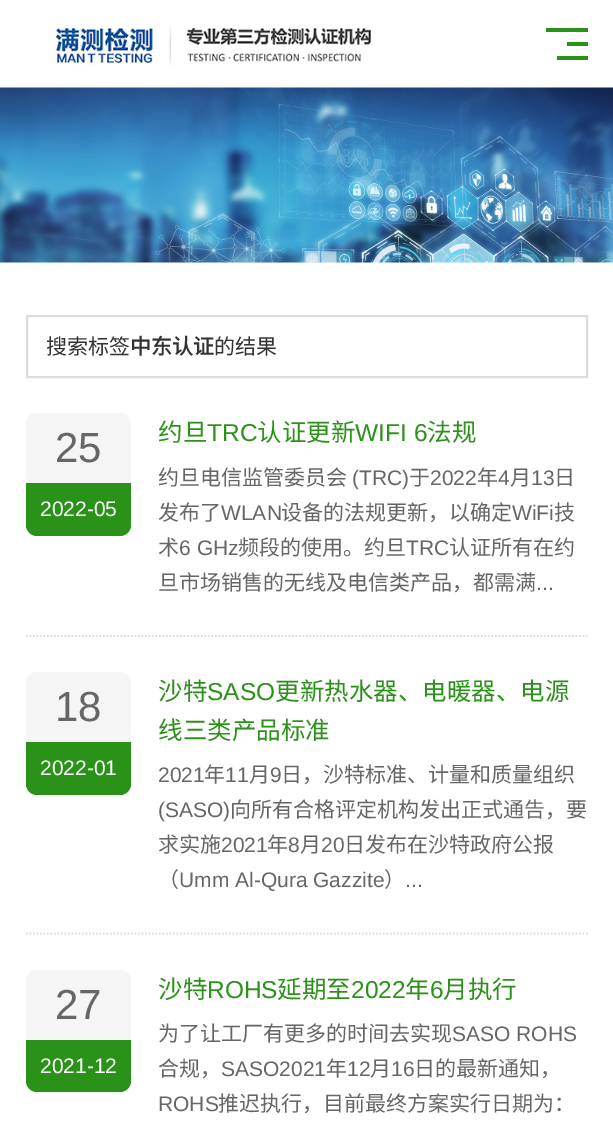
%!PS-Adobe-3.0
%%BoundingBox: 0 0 613 1134
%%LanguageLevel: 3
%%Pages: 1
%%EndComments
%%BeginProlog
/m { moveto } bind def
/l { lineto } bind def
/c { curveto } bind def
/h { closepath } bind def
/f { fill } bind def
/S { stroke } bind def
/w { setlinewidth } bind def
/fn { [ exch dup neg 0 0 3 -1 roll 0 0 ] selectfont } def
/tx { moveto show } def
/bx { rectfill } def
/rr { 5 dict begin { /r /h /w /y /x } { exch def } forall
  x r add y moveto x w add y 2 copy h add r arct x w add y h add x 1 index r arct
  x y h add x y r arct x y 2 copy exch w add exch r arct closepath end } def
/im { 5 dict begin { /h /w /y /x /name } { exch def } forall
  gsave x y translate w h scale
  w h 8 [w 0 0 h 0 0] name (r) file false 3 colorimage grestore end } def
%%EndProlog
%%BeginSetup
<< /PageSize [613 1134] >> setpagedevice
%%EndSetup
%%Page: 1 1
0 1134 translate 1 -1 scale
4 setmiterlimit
1 setgray
0 0 613 1134 bx
(image0.raw) 53 25 318 41 im
0.169 0.573 0.098 setrgbcolor
546 28 42 4 bx
567 42 21 4 bx
557 56 31 4 bx
(image1.raw) 0 87 613 176 im
0.867 setgray
2 w
27 316 560 61 rectstroke
/NotoSansCJKSC-Regular 21 fn
0.2 setgray
(搜索标签) 46 354 tx
/NotoSansCJKSC-Bold 21 fn
(中东认证) 130 354 tx
/NotoSansCJKSC-Regular 21 fn
(的结果) 214 354 tx
0.867 setgray
1.8 w
[1.75 1.75] 0 setdash
26 636 m 588 636 l S
0.961 setgray
26 413 105 123 11 rr f
/LiberationSans-Regular 42 fn
0.4 setgray
(25) 55 462 tx
0.169 0.573 0.098 setrgbcolor
26 483 m 131 483 l 131 525 l 131 531 126 536 120 536 c 37 536 l 31 536 26 531 26 525 c h f
/LiberationSans-Regular 21 fn
1 setgray
(2022-05) 40 516 tx
/NotoSansCJKSC-Regular 24.5 fn
0.169 0.573 0.098 setrgbcolor
(约旦) 158 441 tx
/LiberationSans-Regular 24.5 fn
(TRC) 207 441 tx
/NotoSansCJKSC-Regular 24.5 fn
(认证更新) 257 441 tx
/LiberationSans-Regular 24.5 fn
(WIFI 6) 355 441 tx
/NotoSansCJKSC-Regular 24.5 fn
(法规) 427 441 tx
/NotoSansCJKSC-Regular 21 fn
0.4 setgray
(约旦电信监管委员会) 158 485 tx
/LiberationSans-Regular 21 fn
(\(TRC\)) 352 485 tx
/NotoSansCJKSC-Regular 21 fn
(于) 409 485 tx
/LiberationSans-Regular 21 fn
(2022) 430 485 tx
/NotoSansCJKSC-Regular 21 fn
(年) 477 485 tx
/LiberationSans-Regular 21 fn
(4) 498 485 tx
/NotoSansCJKSC-Regular 21 fn
(月) 510 485 tx
/LiberationSans-Regular 21 fn
(13) 531 485 tx
/NotoSansCJKSC-Regular 21 fn
(日) 554 485 tx
(发布了) 158 520 tx
/LiberationSans-Regular 21 fn
(WLAN) 221 520 tx
/NotoSansCJKSC-Regular 21 fn
(设备的法规更新，以确定) 281 520 tx
/LiberationSans-Regular 21 fn
(WiFi) 512 520 tx
/NotoSansCJKSC-Regular 21 fn
(技) 554 520 tx
(术) 158 555 tx
/LiberationSans-Regular 21 fn
(6 GHz) 179 555 tx
/NotoSansCJKSC-Regular 21 fn
(频段的使用。约旦) 238 555 tx
/LiberationSans-Regular 21 fn
(TRC) 406 555 tx
/NotoSansCJKSC-Regular 21 fn
(认证所有在约) 449 555 tx
(旦市场销售的无线及电信类产品，都需满) 158 590 tx
/LiberationSans-Regular 21 fn
(...) 536 590 tx
0.867 setgray
26 933.5 m 588 933.5 l S
0.961 setgray
26 672 105 123 11 rr f
/LiberationSans-Regular 42 fn
0.4 setgray
(18) 55 721 tx
0.169 0.573 0.098 setrgbcolor
26 742 m 131 742 l 131 784 l 131 790 126 795 120 795 c 37 795 l 31 795 26 790 26 784 c h f
/LiberationSans-Regular 21 fn
1 setgray
(2022-01) 40 775 tx
/NotoSansCJKSC-Regular 24.5 fn
0.169 0.573 0.098 setrgbcolor
(沙特) 158 700 tx
/LiberationSans-Regular 24.5 fn
(SASO) 207 700 tx
/NotoSansCJKSC-Regular 24.5 fn
(更新热水器、电暖器、电源) 275 700 tx
(线三类产品标准) 158 739 tx
/LiberationSans-Regular 21 fn
0.4 setgray
(2021) 158 782 tx
/NotoSansCJKSC-Regular 21 fn
(年) 204 782 tx
/LiberationSans-Regular 21 fn
(11) 225 782 tx
/NotoSansCJKSC-Regular 21 fn
(月) 249 782 tx
/LiberationSans-Regular 21 fn
(9) 270 782 tx
/NotoSansCJKSC-Regular 21 fn
(日，沙特标准、计量和质量组织) 281 782 tx
/LiberationSans-Regular 21 fn
(\(SASO\)) 158 817 tx
/NotoSansCJKSC-Regular 21 fn
(向所有合格评定机构发出正式通告，要) 230 817 tx
(求实施) 158 852 tx
/LiberationSans-Regular 21 fn
(2021) 221 852 tx
/NotoSansCJKSC-Regular 21 fn
(年) 267 852 tx
/LiberationSans-Regular 21 fn
(8) 288 852 tx
/NotoSansCJKSC-Regular 21 fn
(月) 300 852 tx
/LiberationSans-Regular 21 fn
(20) 321 852 tx
/NotoSansCJKSC-Regular 21 fn
(日发布在沙特政府公报) 344 852 tx
(（) 158 887 tx
/LiberationSans-Regular 21 fn
(Umm Al-Qura Gazzite) 179 887 tx
/NotoSansCJKSC-Regular 21 fn
(）) 384 887 tx
/LiberationSans-Regular 21 fn
(...) 405 887 tx
0.961 setgray
26 970 105 122 11 rr f
/LiberationSans-Regular 42 fn
0.4 setgray
(27) 55 1019 tx
0.169 0.573 0.098 setrgbcolor
26 1040 m 131 1040 l 131 1081 l 131 1087 126 1092 120 1092 c 37 1092 l 31 1092 26 1087 26 1081 c h f
/LiberationSans-Regular 21 fn
1 setgray
(2021-12) 40 1073 tx
/NotoSansCJKSC-Regular 24.5 fn
0.169 0.573 0.098 setrgbcolor
(沙特) 158 998 tx
/LiberationSans-Regular 24.5 fn
(ROHS) 207 998 tx
/NotoSansCJKSC-Regular 24.5 fn
(延期至) 277 998 tx
/LiberationSans-Regular 24.5 fn
(2022) 351 998 tx
/NotoSansCJKSC-Regular 24.5 fn
(年) 405 998 tx
/LiberationSans-Regular 24.5 fn
(6) 430 998 tx
/NotoSansCJKSC-Regular 24.5 fn
(月执行) 443 998 tx
/NotoSansCJKSC-Regular 21 fn
0.4 setgray
(为了让工厂有更多的时间去实现) 158 1041 tx
/LiberationSans-Regular 21 fn
(SASO ROHS) 452 1041 tx
/NotoSansCJKSC-Regular 21 fn
(合规，) 158 1076 tx
/LiberationSans-Regular 21 fn
(SASO2021) 221 1076 tx
/NotoSansCJKSC-Regular 21 fn
(年) 326 1076 tx
/LiberationSans-Regular 21 fn
(12) 347 1076 tx
/NotoSansCJKSC-Regular 21 fn
(月) 370 1076 tx
/LiberationSans-Regular 21 fn
(16) 391 1076 tx
/NotoSansCJKSC-Regular 21 fn
(日的最新通知，) 414 1076 tx
/LiberationSans-Regular 21 fn
(ROHS) 158 1111 tx
/NotoSansCJKSC-Regular 21 fn
(推迟执行，目前最终方案实行日期为：) 218 1111 tx
showpage
%%EOF
